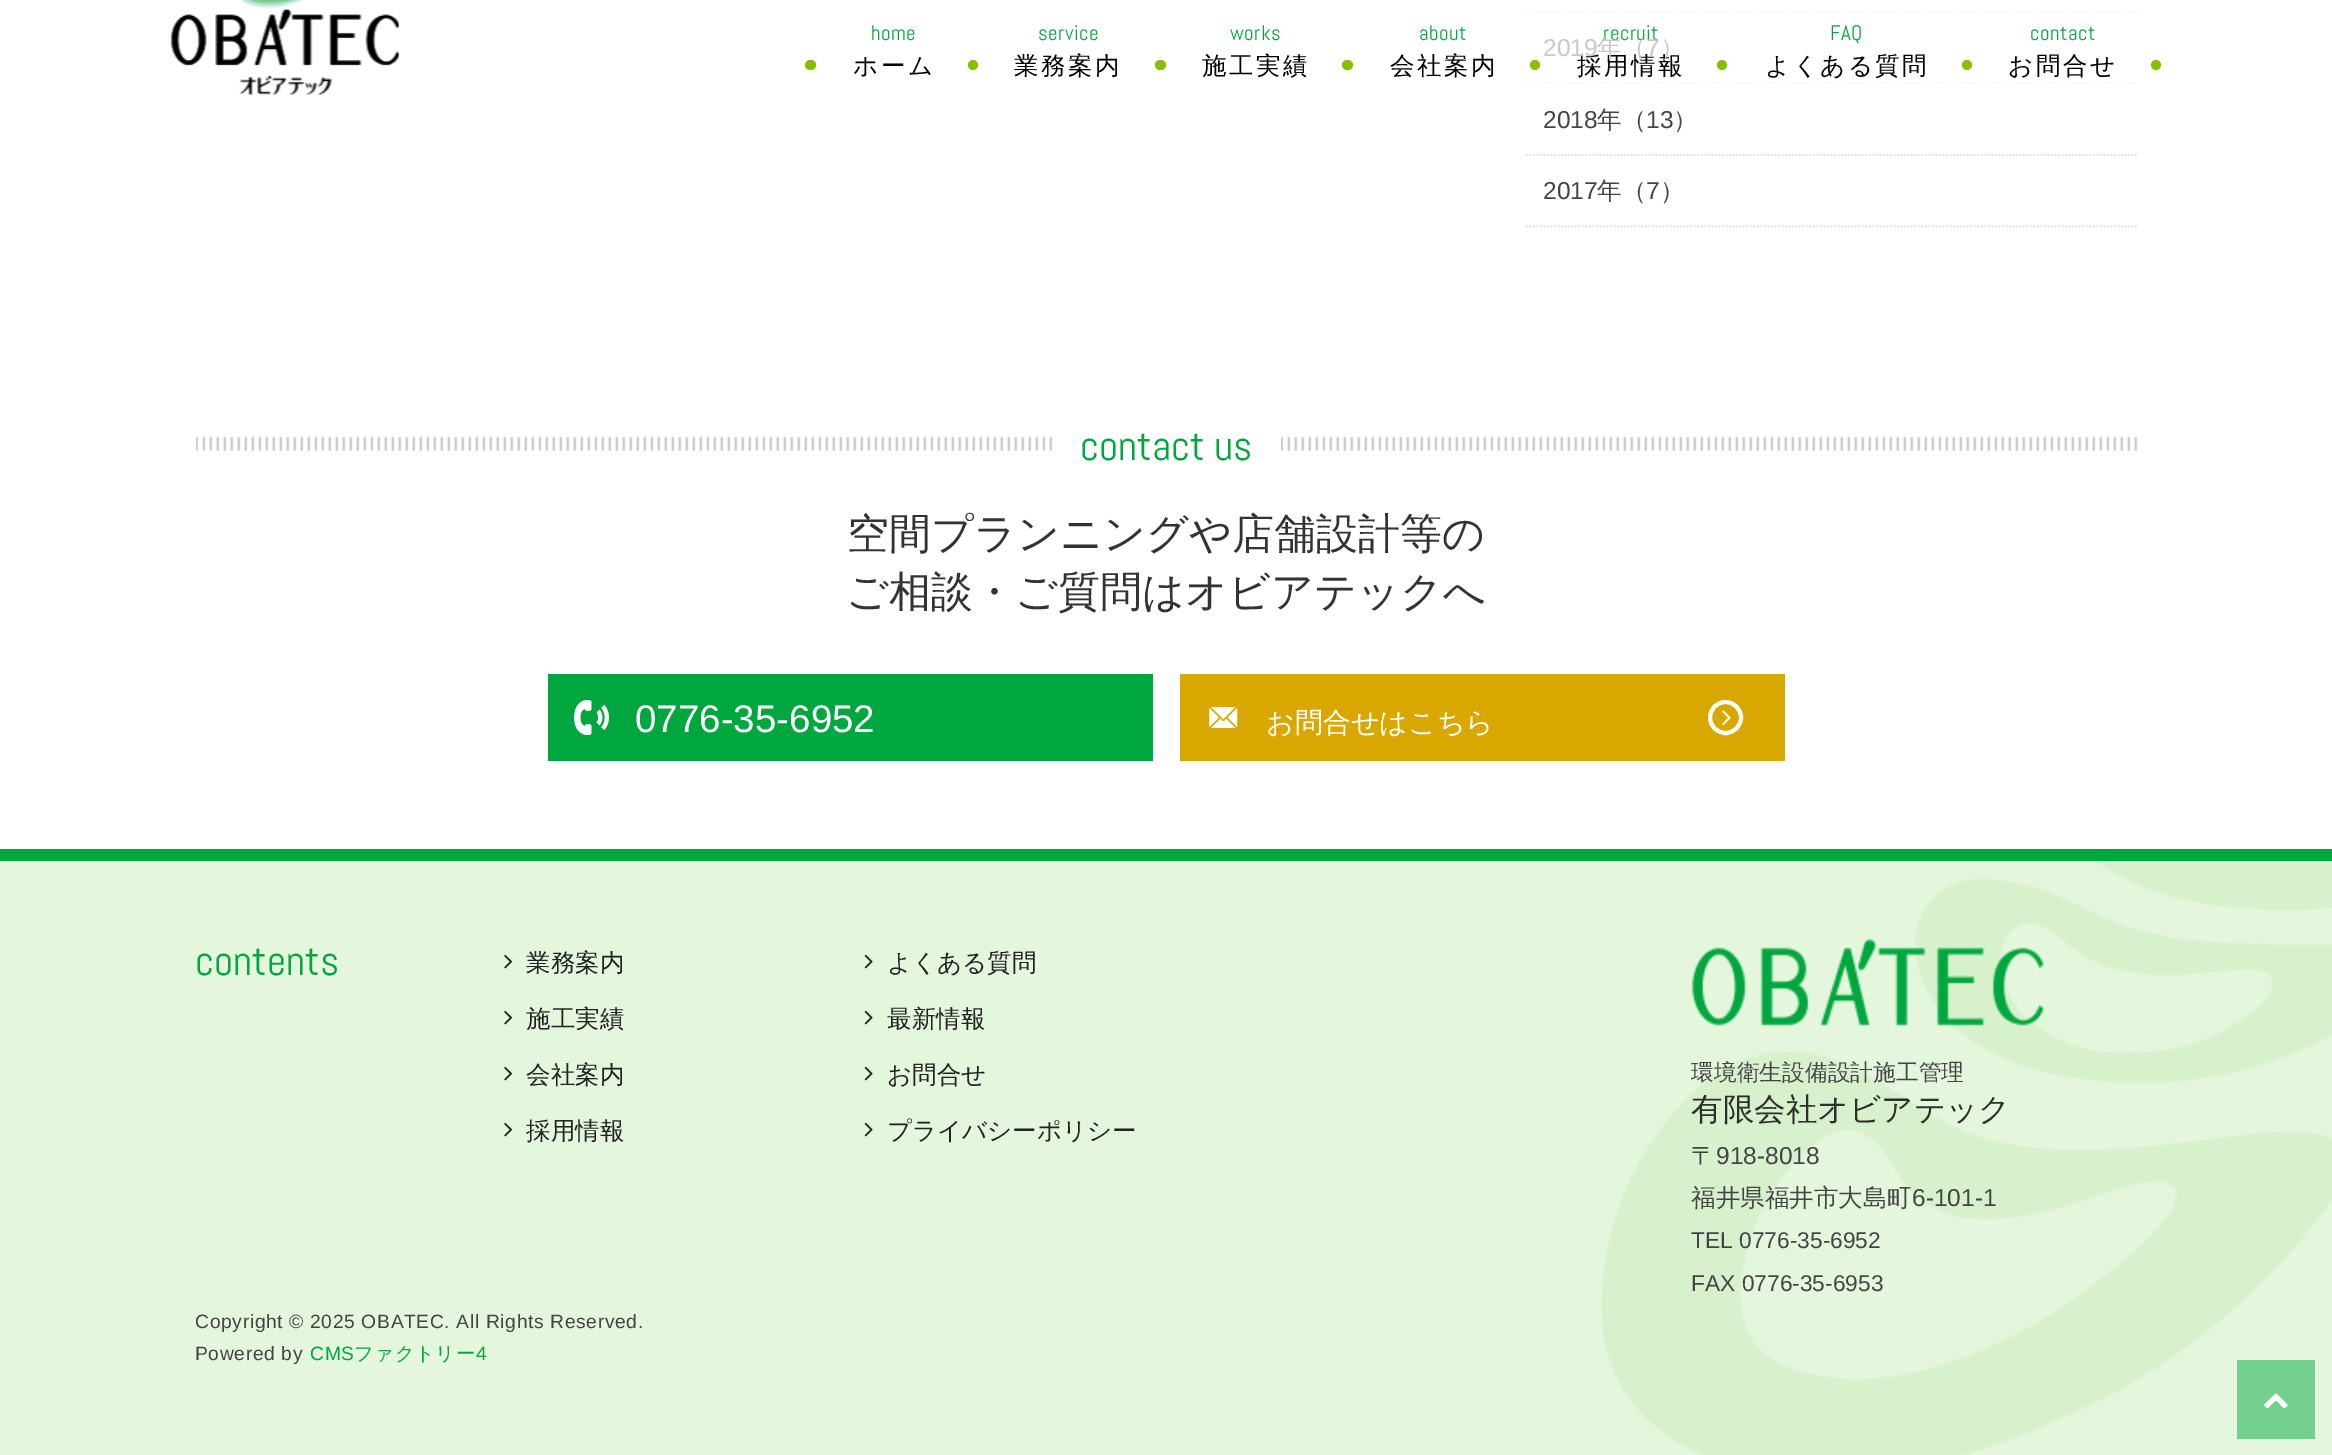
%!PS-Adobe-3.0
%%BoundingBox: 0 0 2332 1455
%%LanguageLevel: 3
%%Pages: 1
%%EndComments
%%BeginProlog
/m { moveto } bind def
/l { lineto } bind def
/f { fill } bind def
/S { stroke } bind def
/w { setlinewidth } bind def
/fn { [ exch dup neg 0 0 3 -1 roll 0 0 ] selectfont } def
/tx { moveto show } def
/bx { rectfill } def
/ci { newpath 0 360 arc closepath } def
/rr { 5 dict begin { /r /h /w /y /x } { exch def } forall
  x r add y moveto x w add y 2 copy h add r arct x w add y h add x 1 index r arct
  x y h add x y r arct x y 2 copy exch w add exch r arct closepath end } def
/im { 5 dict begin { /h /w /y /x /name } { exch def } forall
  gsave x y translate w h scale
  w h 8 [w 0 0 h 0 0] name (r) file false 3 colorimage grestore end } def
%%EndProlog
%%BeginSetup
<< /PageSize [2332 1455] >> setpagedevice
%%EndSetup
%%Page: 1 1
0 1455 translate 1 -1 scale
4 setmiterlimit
1 setgray
0 0 2332 1455 bx
(image0.raw) 170 0 229 95 im
0.529 0.749 0 setrgbcolor
805 60 11 10 5 rr f
/Abel-Regular 21 fn
0 0.655 0.243 setrgbcolor
871 40 m 0.5 0 (home) ashow
/WenQuanYiZenHei-Medium 24.5 fn
0 setgray
853 74 m 2.5 0 (ホーム) ashow
0.529 0.749 0 setrgbcolor
973 65 5 ci f
/Abel-Regular 21 fn
0 0.655 0.243 setrgbcolor
1038 40 m 0.5 0 (service) ashow
/WenQuanYiZenHei-Medium 24.5 fn
0 setgray
1014 74 m 2.5 0 (業務案内) ashow
0.529 0.749 0 setrgbcolor
1155 60 11 10 5 rr f
/Abel-Regular 21 fn
0 0.655 0.243 setrgbcolor
1230 40 m 0.5 0 (works) ashow
/WenQuanYiZenHei-Medium 24.5 fn
0 setgray
1202 74 m 2.5 0 (施工実績) ashow
0.529 0.749 0 setrgbcolor
1342 60 11 10 5 rr f
/Abel-Regular 21 fn
0 0.655 0.243 setrgbcolor
1419 40 m 0.5 0 (about) ashow
/WenQuanYiZenHei-Medium 24.5 fn
0 setgray
1390 74 m 2.5 0 (会社案内) ashow
0.529 0.749 0 setrgbcolor
1535 65 5 ci f
/Abel-Regular 21 fn
0 0.655 0.243 setrgbcolor
1603 40 m 0.5 0 (recruit) ashow
/WenQuanYiZenHei-Medium 24.5 fn
0 setgray
1577 74 m 2.5 0 (採用情報) ashow
0.529 0.749 0 setrgbcolor
1722 65 5 ci f
/Abel-Regular 21 fn
0 0.655 0.243 setrgbcolor
1830 40 m 0.5 0 (FAQ) ashow
/WenQuanYiZenHei-Medium 24.5 fn
0 setgray
1765 74 m 2.5 0 (よくある質問) ashow
0.529 0.749 0 setrgbcolor
1967 65 5 ci f
/Abel-Regular 21 fn
0 0.655 0.243 setrgbcolor
2030 40 m 0.5 0 (contact) ashow
/WenQuanYiZenHei-Medium 24.5 fn
0 setgray
2008 74 m 2.5 0 (お問合せ) ashow
0.529 0.749 0 setrgbcolor
2156 65 5 ci f
0.965 setgray
1.8 w
[1.75 1.75] 0 setdash
1526 11.5 m 2137 11.5 l S
1526 83 m 2137 83 l S
/LiberationSans-Regular 24.5 fn
0.78 setgray
(2019) 1543 56 tx
/WenQuanYiZenHei-Medium 24.5 fn
(年（) 1597 56 tx
/LiberationSans-Regular 24.5 fn
(7) 1646 56 tx
/WenQuanYiZenHei-Medium 24.5 fn
(）) 1660 56 tx
0.878 0.878 0.882 setrgbcolor
1526 155 m 2137 155 l S
/LiberationSans-Regular 24.5 fn
0.267 setgray
(2018) 1543 128 tx
/WenQuanYiZenHei-Medium 24.5 fn
(年（) 1597 128 tx
/LiberationSans-Regular 24.5 fn
(13) 1646 128 tx
/WenQuanYiZenHei-Medium 24.5 fn
(）) 1673 128 tx
0.878 0.878 0.882 setrgbcolor
1526 226.5 m 2137 226.5 l S
/LiberationSans-Regular 24.5 fn
0.267 setgray
(2017) 1543 199 tx
/WenQuanYiZenHei-Medium 24.5 fn
(年（) 1597 199 tx
/LiberationSans-Regular 24.5 fn
(7) 1646 199 tx
/WenQuanYiZenHei-Medium 24.5 fn
(）) 1660 199 tx
(image1.raw) 195 436 1943 15 im
1 setgray
1056 436 225 15 bx
/Abel-Regular 42 fn
0 0.655 0.243 setrgbcolor
(contact us) 1080 460 tx
/WenQuanYiZenHei-Medium 42 fn
0.2 setgray
(空間プランニングや店舗設計等の) 847 548 tx
(ご相談・ご質問はオビアテックへ) 846 606 tx
0 0.655 0.243 setrgbcolor
548 674 605 87 bx
(image2.raw) 574 700 35 35 im
/LiberationSans-Regular 38.5 fn
1 setgray
(0776-35-6952) 635 732 tx
0.851 0.659 0 setrgbcolor
1180 674 605 87 bx
(image3.raw) 1209 707 29 21 im
/WenQuanYiZenHei-Medium 28 fn
1 setgray
(お問合せはこちら) 1266 732 tx
4 w
[] 0 setdash
1725.5 717.5 15.5 ci S
(image4.raw) 1722 710 9 16 im
0.894 0.965 0.863 setrgbcolor
0 861 1601 594 bx
(image5.raw) 1601 861 731 594 im
0 0.655 0.243 setrgbcolor
0 849 2332 12 bx
/Abel-Regular 42 fn
(contents) 195 975 tx
(image6.raw) 504 954 9 15 im
/WenQuanYiZenHei-Medium 24.5 fn
0.133 setgray
(業務案内) 526 971 tx
(image7.raw) 864 954 9 15 im
(よくある質問) 887 971 tx
(image6.raw) 504 1010 9 15 im
(施工実績) 526 1027 tx
(image7.raw) 864 1010 9 15 im
(最新情報) 887 1027 tx
(image6.raw) 504 1066 9 15 im
(会社案内) 526 1083 tx
(image7.raw) 864 1066 9 15 im
(お問合せ) 887 1083 tx
(image6.raw) 504 1122 9 15 im
(採用情報) 526 1139 tx
(image7.raw) 864 1122 9 15 im
(プライバシーポリシー) 887 1139 tx
(image8.raw) 1691 939 353 87 im
/WenQuanYiZenHei-Medium 22.75 fn
0.267 setgray
(環境衛生設備設計施工管理) 1691 1080 tx
/WenQuanYiZenHei-Medium 31.5 fn
0.173 0.188 0.165 setrgbcolor
(有限会社オビアテック) 1691 1120 tx
/WenQuanYiZenHei-Medium 24.5 fn
0.267 setgray
(〒) 1691 1164 tx
/LiberationSans-Regular 24.5 fn
(918-8018) 1716 1164 tx
/WenQuanYiZenHei-Medium 24.5 fn
(福井県福井市大島町) 1691 1206 tx
/LiberationSans-Regular 24.5 fn
(6-101-1) 1912 1206 tx
/LiberationSans-Regular 22.75 fn
(TEL 0776-35-6952) 1691 1248 tx
(FAX 0776-35-6953) 1691 1291 tx
/LiberationSans-Regular 19.25 fn
195 1328 m 0.65 0 (Copyright © 2025 OBATEC. All Rights Reserved.) ashow
195 1360 m 0.65 0 (Powered by) ashow
0 0.655 0.243 setrgbcolor
310 1360 m 0.65 0 (CMS) ashow
/WenQuanYiZenHei-Medium 19.25 fn
354 1360 m 0.65 0 (ファクトリー) ashow
/LiberationSans-Regular 19.25 fn
476 1360 m 0.65 0 (4) ashow
0.447 0.812 0.553 setrgbcolor
2237 1360 78 79 bx
(image9.raw) 2264 1393 24 16 im
showpage
%%EOF
